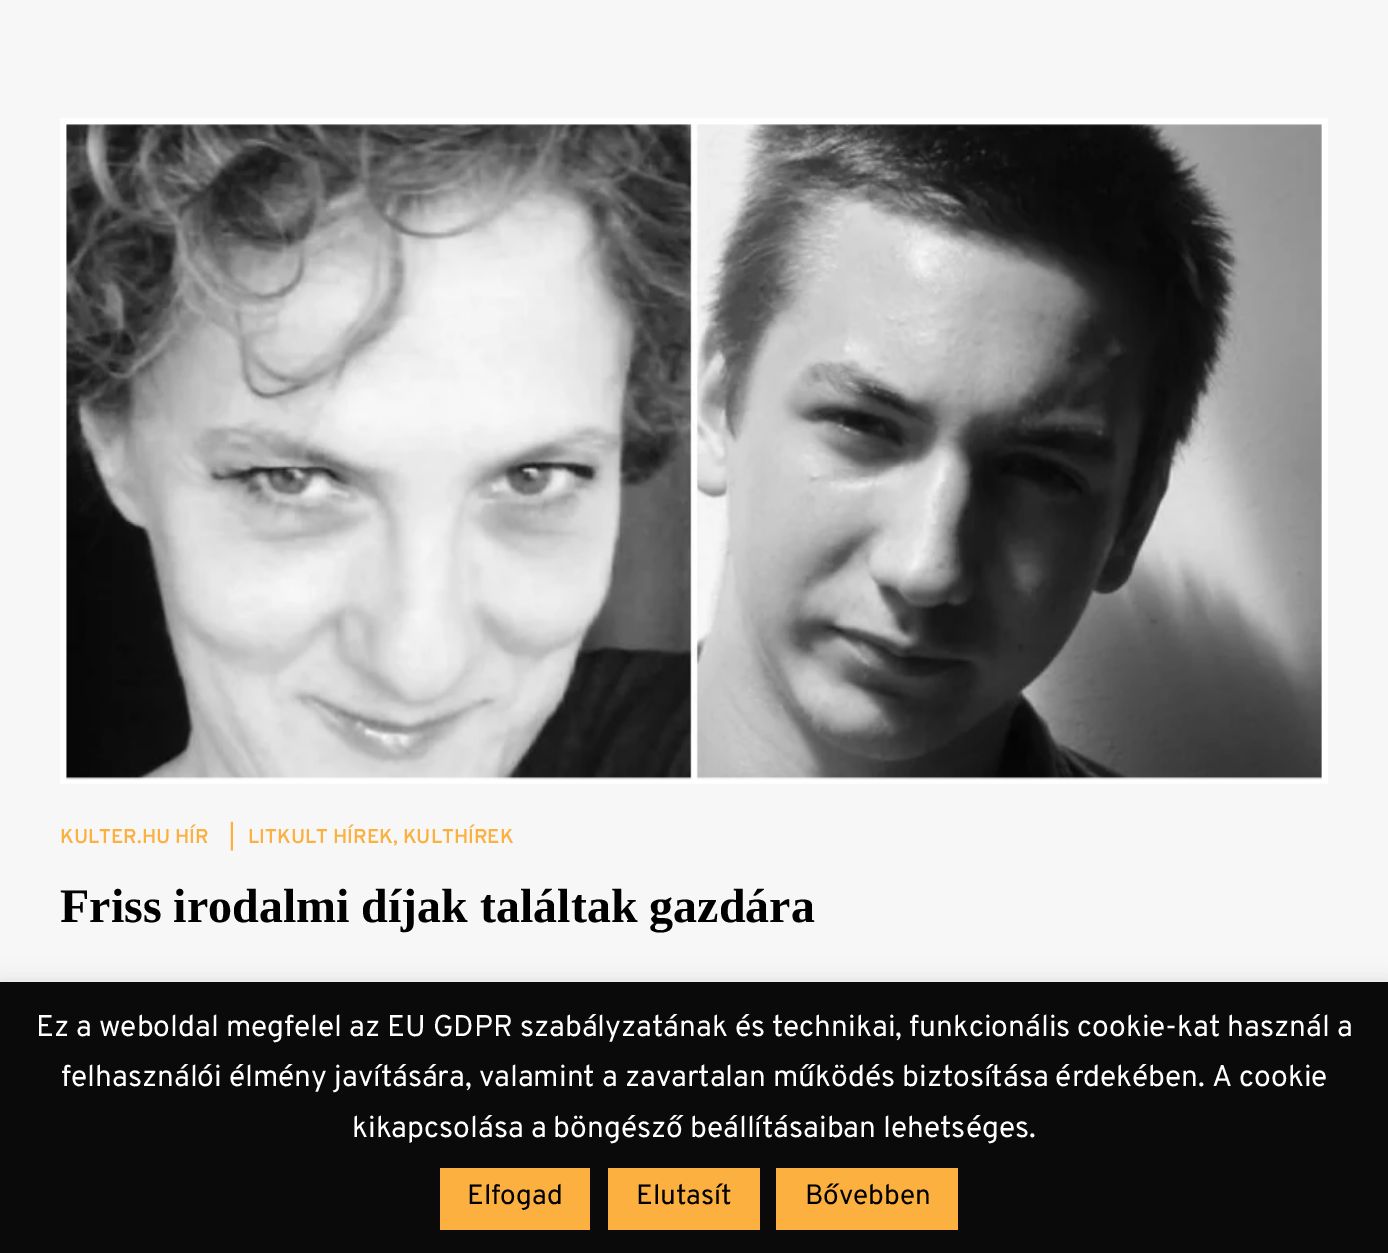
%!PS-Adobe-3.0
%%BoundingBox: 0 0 1388 1253
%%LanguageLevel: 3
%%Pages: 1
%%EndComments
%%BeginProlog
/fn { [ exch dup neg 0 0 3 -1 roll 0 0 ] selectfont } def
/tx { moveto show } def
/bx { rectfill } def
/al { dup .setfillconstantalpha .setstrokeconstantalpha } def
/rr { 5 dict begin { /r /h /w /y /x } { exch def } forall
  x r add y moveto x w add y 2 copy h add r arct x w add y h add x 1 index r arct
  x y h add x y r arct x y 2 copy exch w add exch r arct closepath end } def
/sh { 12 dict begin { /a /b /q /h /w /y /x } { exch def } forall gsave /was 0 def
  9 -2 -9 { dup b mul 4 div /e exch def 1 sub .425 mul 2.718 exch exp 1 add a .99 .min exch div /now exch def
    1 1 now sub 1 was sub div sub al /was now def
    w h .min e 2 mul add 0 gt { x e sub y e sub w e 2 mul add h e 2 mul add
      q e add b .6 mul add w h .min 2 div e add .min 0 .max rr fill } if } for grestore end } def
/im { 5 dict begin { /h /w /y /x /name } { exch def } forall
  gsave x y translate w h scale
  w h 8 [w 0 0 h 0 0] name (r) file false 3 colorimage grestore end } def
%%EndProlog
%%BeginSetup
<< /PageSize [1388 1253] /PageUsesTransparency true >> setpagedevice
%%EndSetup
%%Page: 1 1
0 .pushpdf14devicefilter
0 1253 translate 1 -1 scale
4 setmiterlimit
0.969 setgray
0 0 1388 1253 bx
(image0.raw) 60 118 1268 666 im
/Overpass-SemiBold 20 fn
0.984 0.69 0.251 setrgbcolor
(KULTER.HU HÍR) 60 843 tx
(|) 229 843 tx
(LITKULT HÍREK, KULTHÍREK) 248 843 tx
/LiberationSerif-Bold 48 fn
0 setgray
(Friss irodalmi díjak találtak gazdára) 60 922 tx
0.675 0.671 0.671 setrgbcolor
0 980 1388 272 0 10 0.3 sh
0.039 setgray
0 982 1388 271 bx
/Overpass-Regular 30 fn
1 setgray
(Ez a weboldal megfelel az EU GDPR szabályzatának és technikai, funkcionális cookie-kat használ a) 36 1036 tx
(felhasználói élmény javítására, valamint a zavartalan működés biztosítása érdekében. A cookie) 61 1086 tx
(kikapcsolása a böngésző beállításaiban lehetséges.) 352 1137 tx
0.984 0.69 0.251 setrgbcolor
440 1168 150 62 bx
/Overpass-Regular 28 fn
0 setgray
(Elfogad) 467 1204 tx
0.984 0.69 0.251 setrgbcolor
608 1168 152 62 bx
0 setgray
(Elutasít) 636 1204 tx
0.984 0.69 0.251 setrgbcolor
776 1168 182 62 bx
0 setgray
(Bővebben) 805 1204 tx
.poppdf14devicefilter showpage
%%EOF
